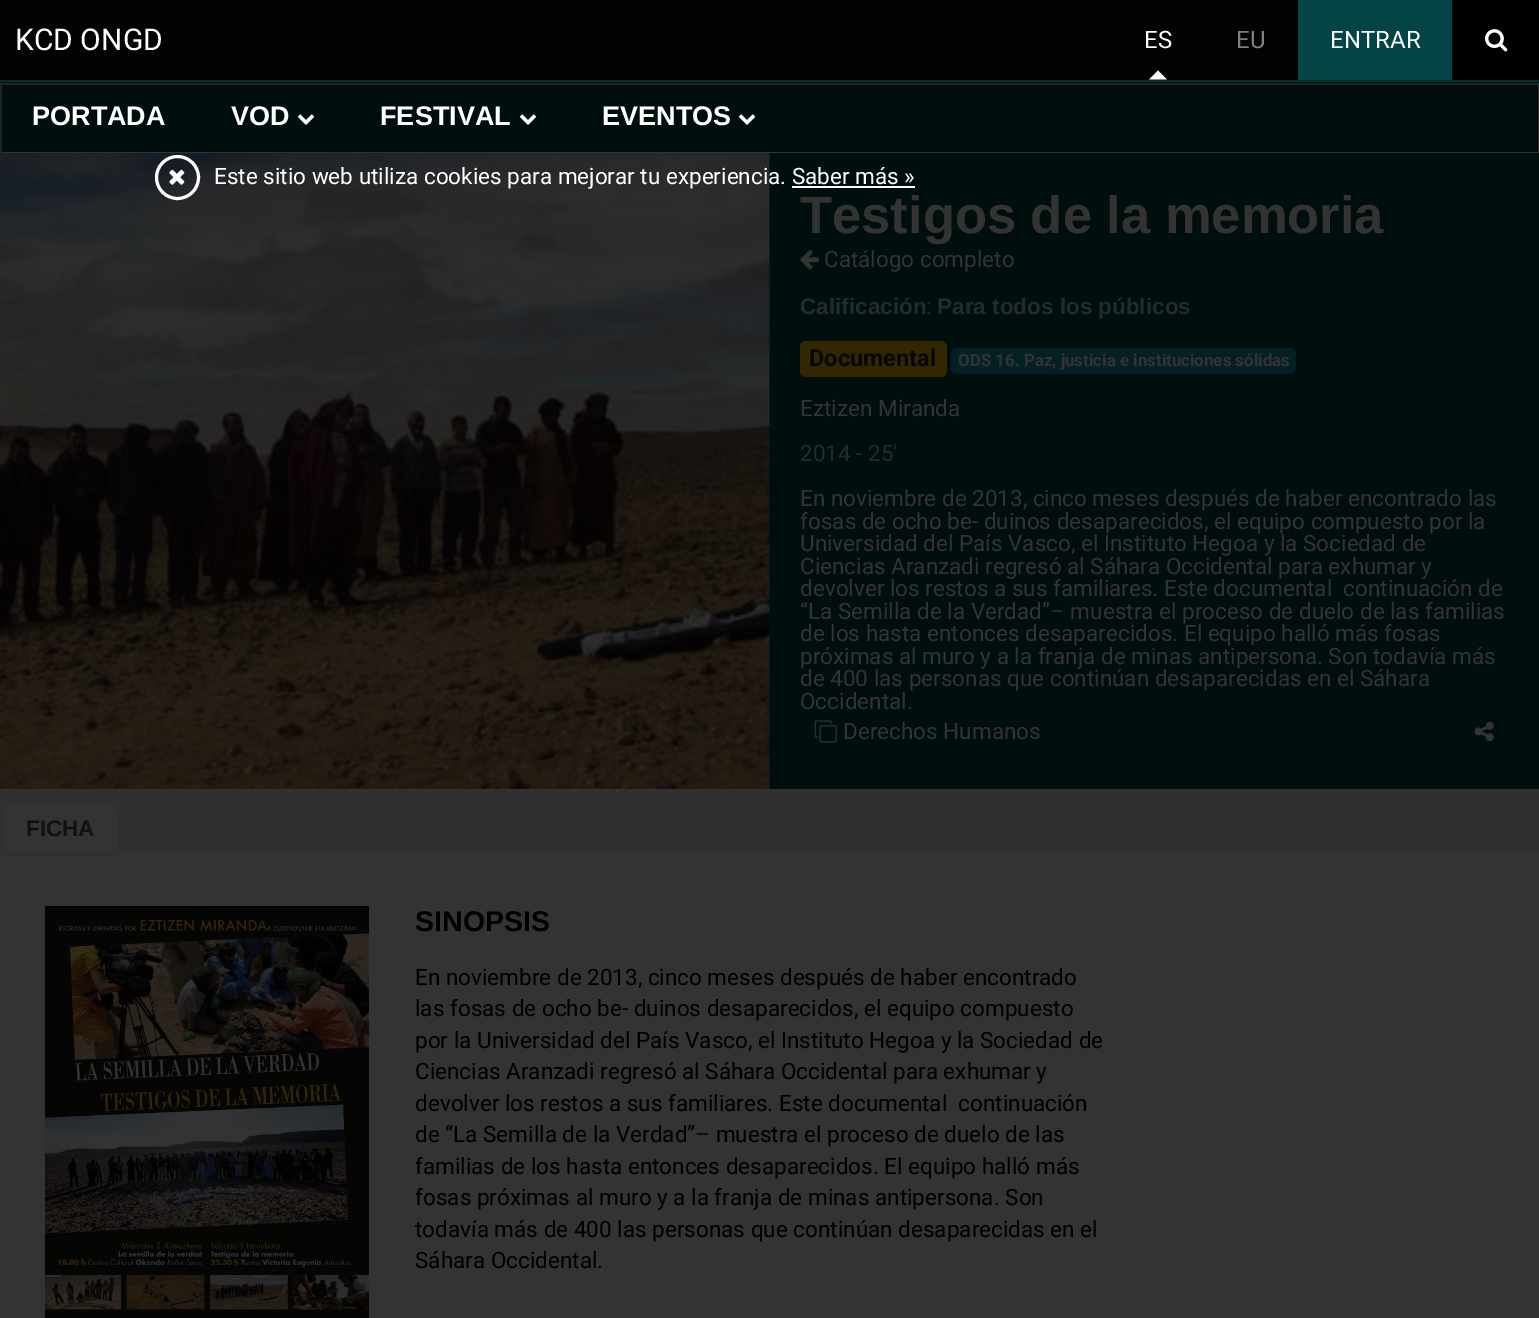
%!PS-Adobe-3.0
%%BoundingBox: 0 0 1539 1318
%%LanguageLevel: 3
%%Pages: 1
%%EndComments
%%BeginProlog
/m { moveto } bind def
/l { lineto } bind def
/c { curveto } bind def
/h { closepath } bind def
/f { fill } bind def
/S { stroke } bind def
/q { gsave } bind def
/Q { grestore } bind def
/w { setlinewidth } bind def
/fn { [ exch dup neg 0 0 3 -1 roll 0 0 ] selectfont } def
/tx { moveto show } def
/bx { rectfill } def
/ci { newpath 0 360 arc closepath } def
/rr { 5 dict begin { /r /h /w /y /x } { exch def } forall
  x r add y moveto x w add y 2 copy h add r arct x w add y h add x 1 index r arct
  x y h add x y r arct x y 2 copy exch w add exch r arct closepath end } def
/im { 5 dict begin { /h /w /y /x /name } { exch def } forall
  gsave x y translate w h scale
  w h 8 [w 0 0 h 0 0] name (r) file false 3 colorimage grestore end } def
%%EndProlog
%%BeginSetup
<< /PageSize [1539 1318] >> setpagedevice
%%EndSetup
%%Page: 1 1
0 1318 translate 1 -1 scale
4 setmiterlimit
0.188 setgray
0 0 1539 1318 bx
0.016 0.008 0.02 setrgbcolor
0 0 1298 80 bx
0.008 0.18 0.184 setrgbcolor
0 80 1539 2 bx
/Roboto-Regular 30 fn
1 setgray
(KCD ONGD) 15 50 tx
/Roboto-Regular 24 fn
(ES) 1144 48 tx
1167 79.5 m 1149 79.5 l 1158 70.5 l h f
0.51 0.506 0.51 setrgbcolor
(EU) 1236 48 tx
0.012 0.271 0.278 setrgbcolor
1298 0 154 80 bx
1 setgray
(ENTRAR) 1330 48 tx
0 setgray
1452 0 87 80 bx
(image0.raw) 1485 29 23 23 im
0.004 0.055 0.055 setrgbcolor
0 82 1539 70 bx
0.133 setgray
0 83 1539 2 bx
0.2 setgray
1538 83 1 70 bx
0 152 1539 1 bx
0.133 setgray
0 83 2 70 bx
/LiberationSans-Bold 27 fn
1 setgray
(PORTADA) 32 125 tx
(VOD) 231 125 tx
(image1.raw) 297 114 18 11 im
(FESTIVAL) 380 125 tx
(image1.raw) 519 114 18 11 im
(EVENTOS) 602 125 tx
(image1.raw) 738 114 18 11 im
0.004 0.055 0.055 setrgbcolor
769 153 770 636 bx
(image3.raw) 0 153 770 636 im
1 setgray
3 w
177.5 177.5 21 ci S
(image2.raw) 169 169 16 16 im
/Roboto-Regular 22.5 fn
(Este sitio web utiliza cookies para mejorar tu experiencia. Saber más ») 214 184 tx
792 186 123 2 bx
/LiberationSans-Bold 52.5 fn
0.2 setgray
(Testigos de la memoria) 800 233 tx
(image4.raw) 800 250 19 20 im
/Roboto-Regular 22.5 fn
(Catálogo completo) 824 267 tx
/LiberationSans-Bold 22.5 fn
0.141 0.169 0.176 setrgbcolor
(Calificación) 800 314 tx
/Roboto-Regular 22.5 fn
(:) 926 314 tx
/LiberationSans-Bold 22.5 fn
(Para todos los públicos) 937 314 tx
0.2 0.153 0.004 setrgbcolor
800 341 147 36 6 rr f
/Roboto-Bold 23.5 fn
0.027 0.027 0.031 setrgbcolor
(Documental) 809 366 tx
0.02 0.125 0.145 setrgbcolor
951 348 345 26 6 rr f
/Roboto-Bold 16.9 fn
0.2 setgray
(ODS 16. Paz, justicia e instituciones sólidas) 958 366 tx
/Roboto-Regular 22.5 fn
(Eztizen Miranda) 800 416 tx
0.141 0.169 0.176 setrgbcolor
(2014 - 25') 800 461 tx
0.2 setgray
(En noviembre de 2013, cinco meses después de haber encontrado las) 800 506 tx
(fosas de ocho be- duinos desaparecidos, el equipo compuesto por la) 800 529 tx
(Universidad del País Vasco, el Instituto Hegoa y la Sociedad de) 800 551 tx
(Ciencias Aranzadi regresó al Sáhara Occidental para exhumar y) 800 574 tx
(devolver los restos a sus familiares. Este documental  continuación de) 800 596 tx
(“La Semilla de la Verdad”– muestra el proceso de duelo de las familias) 800 619 tx
(de los hasta entonces desaparecidos. El equipo halló más fosas) 800 641 tx
(próximas al muro y a la franja de minas antipersona. Son todavía más) 800 664 tx
(de 400 las personas que continúan desaparecidas en el Sáhara) 800 686 tx
(Occidental.) 800 709 tx
(image5.raw) 814 720 23 23 im
(Derechos Humanos) 843 739 tx
(image6.raw) 1474 721 20 21 im
0 854 1539 464 bx
6 805 m 114 805 l 117 805 119 807 119 810 c 119 854 l 1 854 l 1 810 l 1 807 3 805 6 805 c h q f Q
0.188 setgray
2 w
S
/LiberationSans-Bold 22.5 fn
0.067 setgray
(FICHA) 26 836 tx
(image7.raw) 45 906 324 412 im
/LiberationSans-Bold 28.5 fn
0.004 0 0.004 setrgbcolor
(SINOPSIS) 415 931 tx
/Roboto-Regular 22.5 fn
(En noviembre de 2013, cinco meses después de haber encontrado) 415 985 tx
(las fosas de ocho be- duinos desaparecidos, el equipo compuesto) 415 1016 tx
(por la Universidad del País Vasco, el Instituto Hegoa y la Sociedad de) 415 1048 tx
(Ciencias Aranzadi regresó al Sáhara Occidental para exhumar y) 415 1079 tx
(devolver los restos a sus familiares. Este documental  continuación) 415 1111 tx
(de “La Semilla de la Verdad”– muestra el proceso de duelo de las) 415 1142 tx
(familias de los hasta entonces desaparecidos. El equipo halló más) 415 1174 tx
(fosas próximas al muro y a la franja de minas antipersona. Son) 415 1205 tx
(todavía más de 400 las personas que continúan desaparecidas en el) 415 1237 tx
(Sáhara Occidental.) 415 1268 tx
showpage
%%EOF
